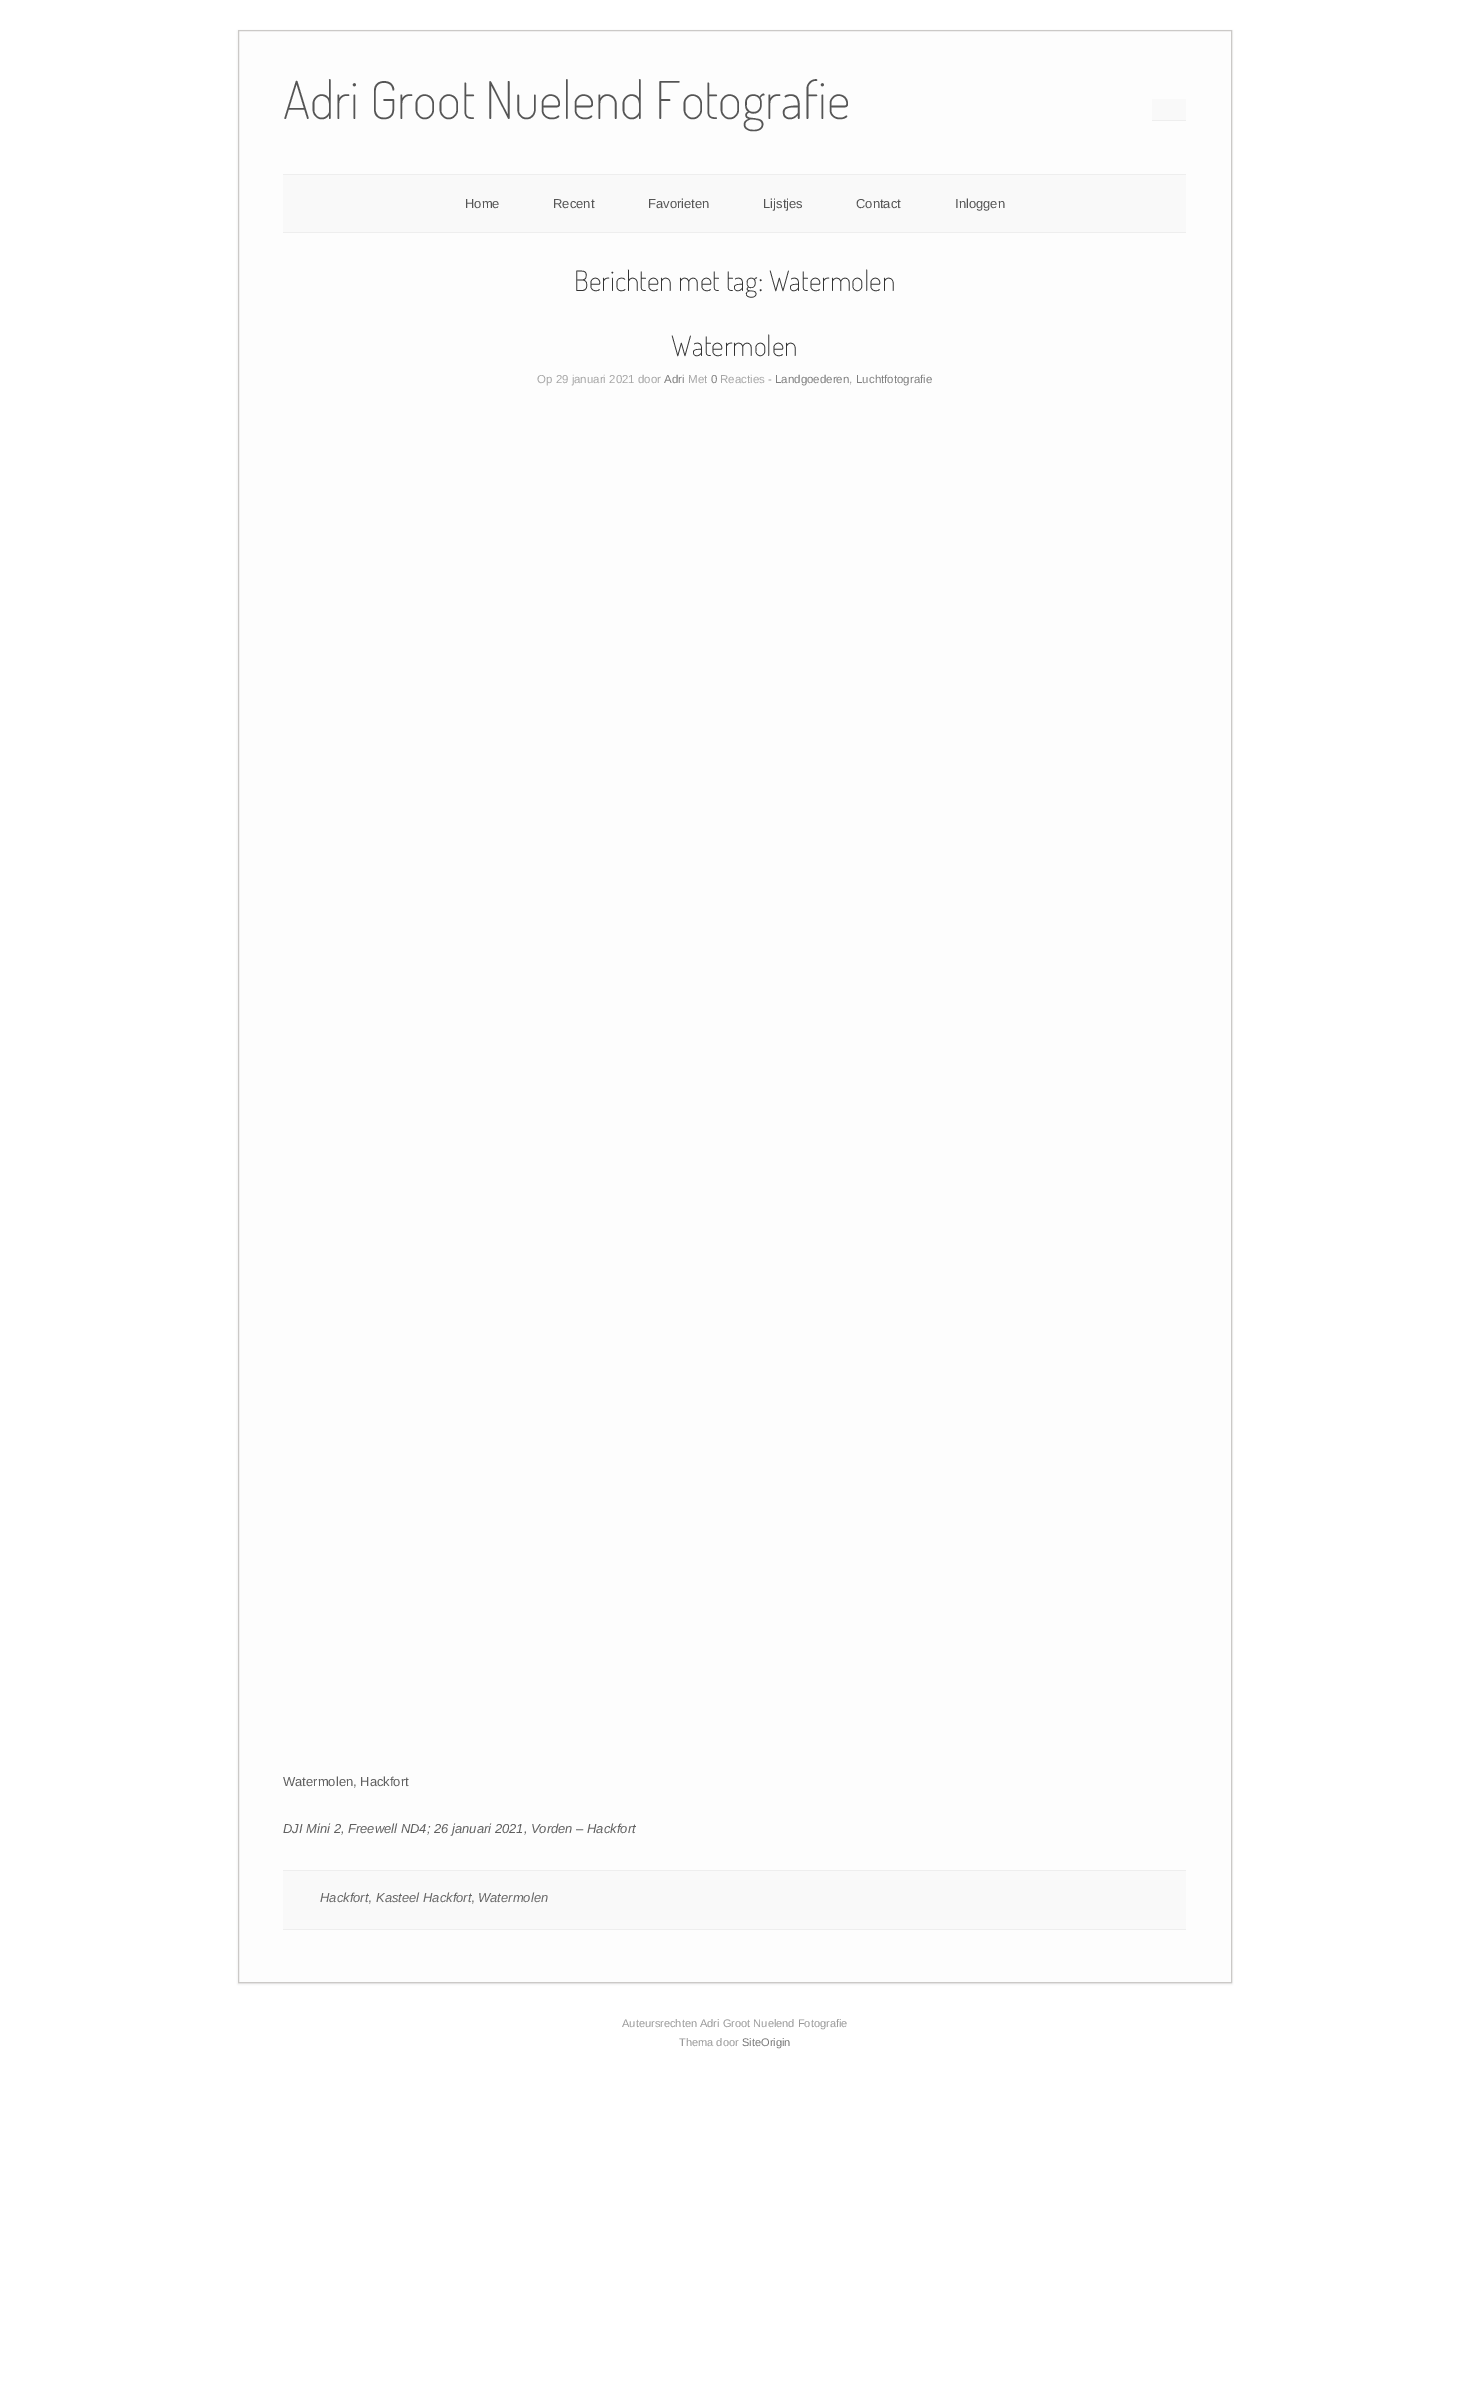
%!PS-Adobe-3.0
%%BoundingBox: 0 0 1469 2389
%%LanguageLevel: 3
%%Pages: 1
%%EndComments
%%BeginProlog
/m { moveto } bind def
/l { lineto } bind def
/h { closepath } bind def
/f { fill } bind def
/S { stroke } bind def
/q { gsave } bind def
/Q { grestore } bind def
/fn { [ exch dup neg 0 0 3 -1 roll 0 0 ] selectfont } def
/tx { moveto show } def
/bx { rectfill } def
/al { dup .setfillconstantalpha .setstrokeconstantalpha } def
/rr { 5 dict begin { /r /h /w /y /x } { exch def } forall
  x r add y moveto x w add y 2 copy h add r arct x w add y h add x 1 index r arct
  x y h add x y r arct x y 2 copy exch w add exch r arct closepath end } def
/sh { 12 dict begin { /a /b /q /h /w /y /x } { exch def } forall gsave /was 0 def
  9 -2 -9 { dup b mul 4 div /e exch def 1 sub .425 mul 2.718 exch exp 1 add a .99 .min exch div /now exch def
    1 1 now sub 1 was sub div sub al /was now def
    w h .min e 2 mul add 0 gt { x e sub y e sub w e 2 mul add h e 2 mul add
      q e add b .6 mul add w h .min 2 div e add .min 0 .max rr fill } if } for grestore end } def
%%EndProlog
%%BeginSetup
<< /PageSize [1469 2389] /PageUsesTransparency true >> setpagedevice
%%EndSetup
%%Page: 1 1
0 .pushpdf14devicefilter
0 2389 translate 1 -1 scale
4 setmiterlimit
1 setgray
0 0 1469 2389 bx
0 setgray
238 31 994 1953 0 1 0.1 sh
0.992 setgray
238.5 30.5 m 1231.5 30.5 l 1231.5 1982.5 l 238.5 1982.5 l h q f Q
0.796 0.788 0.78 setrgbcolor
S
/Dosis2-ExtraLight 52 fn
0.333 setgray
(Adri Groot Nuelend Fotografie) 283 119 tx
0.976 setgray
1152 99 34 21 bx
0.933 setgray
1152 120 34 1 bx
0.976 setgray
283 175 903 57 bx
0.933 setgray
283 174 903 1 bx
283 232 903 1 bx
/LiberationSans-Regular 13 fn
0.333 setgray
(Home) 465 208 tx
(Recent) 553 208 tx
(Favorieten) 648 208 tx
(Lijstjes) 763 208 tx
(Contact) 856 208 tx
(Inloggen) 955 208 tx
/Dosis-ExtraLight 28 fn
0.2 setgray
(Berichten met tag: Watermolen) 574 291 tx
(Watermolen) 671 356 tx
/LiberationSans-Regular 11.5 fn
0.651 setgray
(Op 29 januari 2021 door) 537 383 tx
0.502 setgray
(Adri) 664 383 tx
0.651 setgray
(Met) 688 383 tx
0.502 setgray
(0) 711 383 tx
0.651 setgray
(Reacties -) 720 383 tx
0.502 setgray
(Landgoederen) 775 383 tx
0.651 setgray
(,) 849 383 tx
0.502 setgray
(Luchtfotografie) 856 383 tx
/LiberationSans-Regular 13 fn
0.376 setgray
(Watermolen, Hackfort) 283 1786 tx
/LiberationSans-Italic 13 fn
(DJI Mini 2, Freewell ND4; 26 januari 2021, Vorden – Hackfort) 283 1833 tx
0.976 setgray
283 1871 903 58 bx
0.933 setgray
283 1870 903 1 bx
283 1929 903 1 bx
0.4 setgray
(Hackfort) 320 1902 tx
/LiberationSans-Regular 13 fn
(,) 368 1902 tx
/LiberationSans-Italic 13 fn
(Kasteel Hackfort) 376 1902 tx
/LiberationSans-Regular 13 fn
(,) 471 1902 tx
/LiberationSans-Italic 13 fn
(Watermolen) 478 1902 tx
/LiberationSans-Regular 11.05 fn
0.6 setgray
(Auteursrechten Adri Groot Nuelend Fotografie) 622 2027 tx
(Thema door) 679 2046 tx
0.467 setgray
(SiteOrigin) 742 2046 tx
.poppdf14devicefilter showpage
%%EOF
